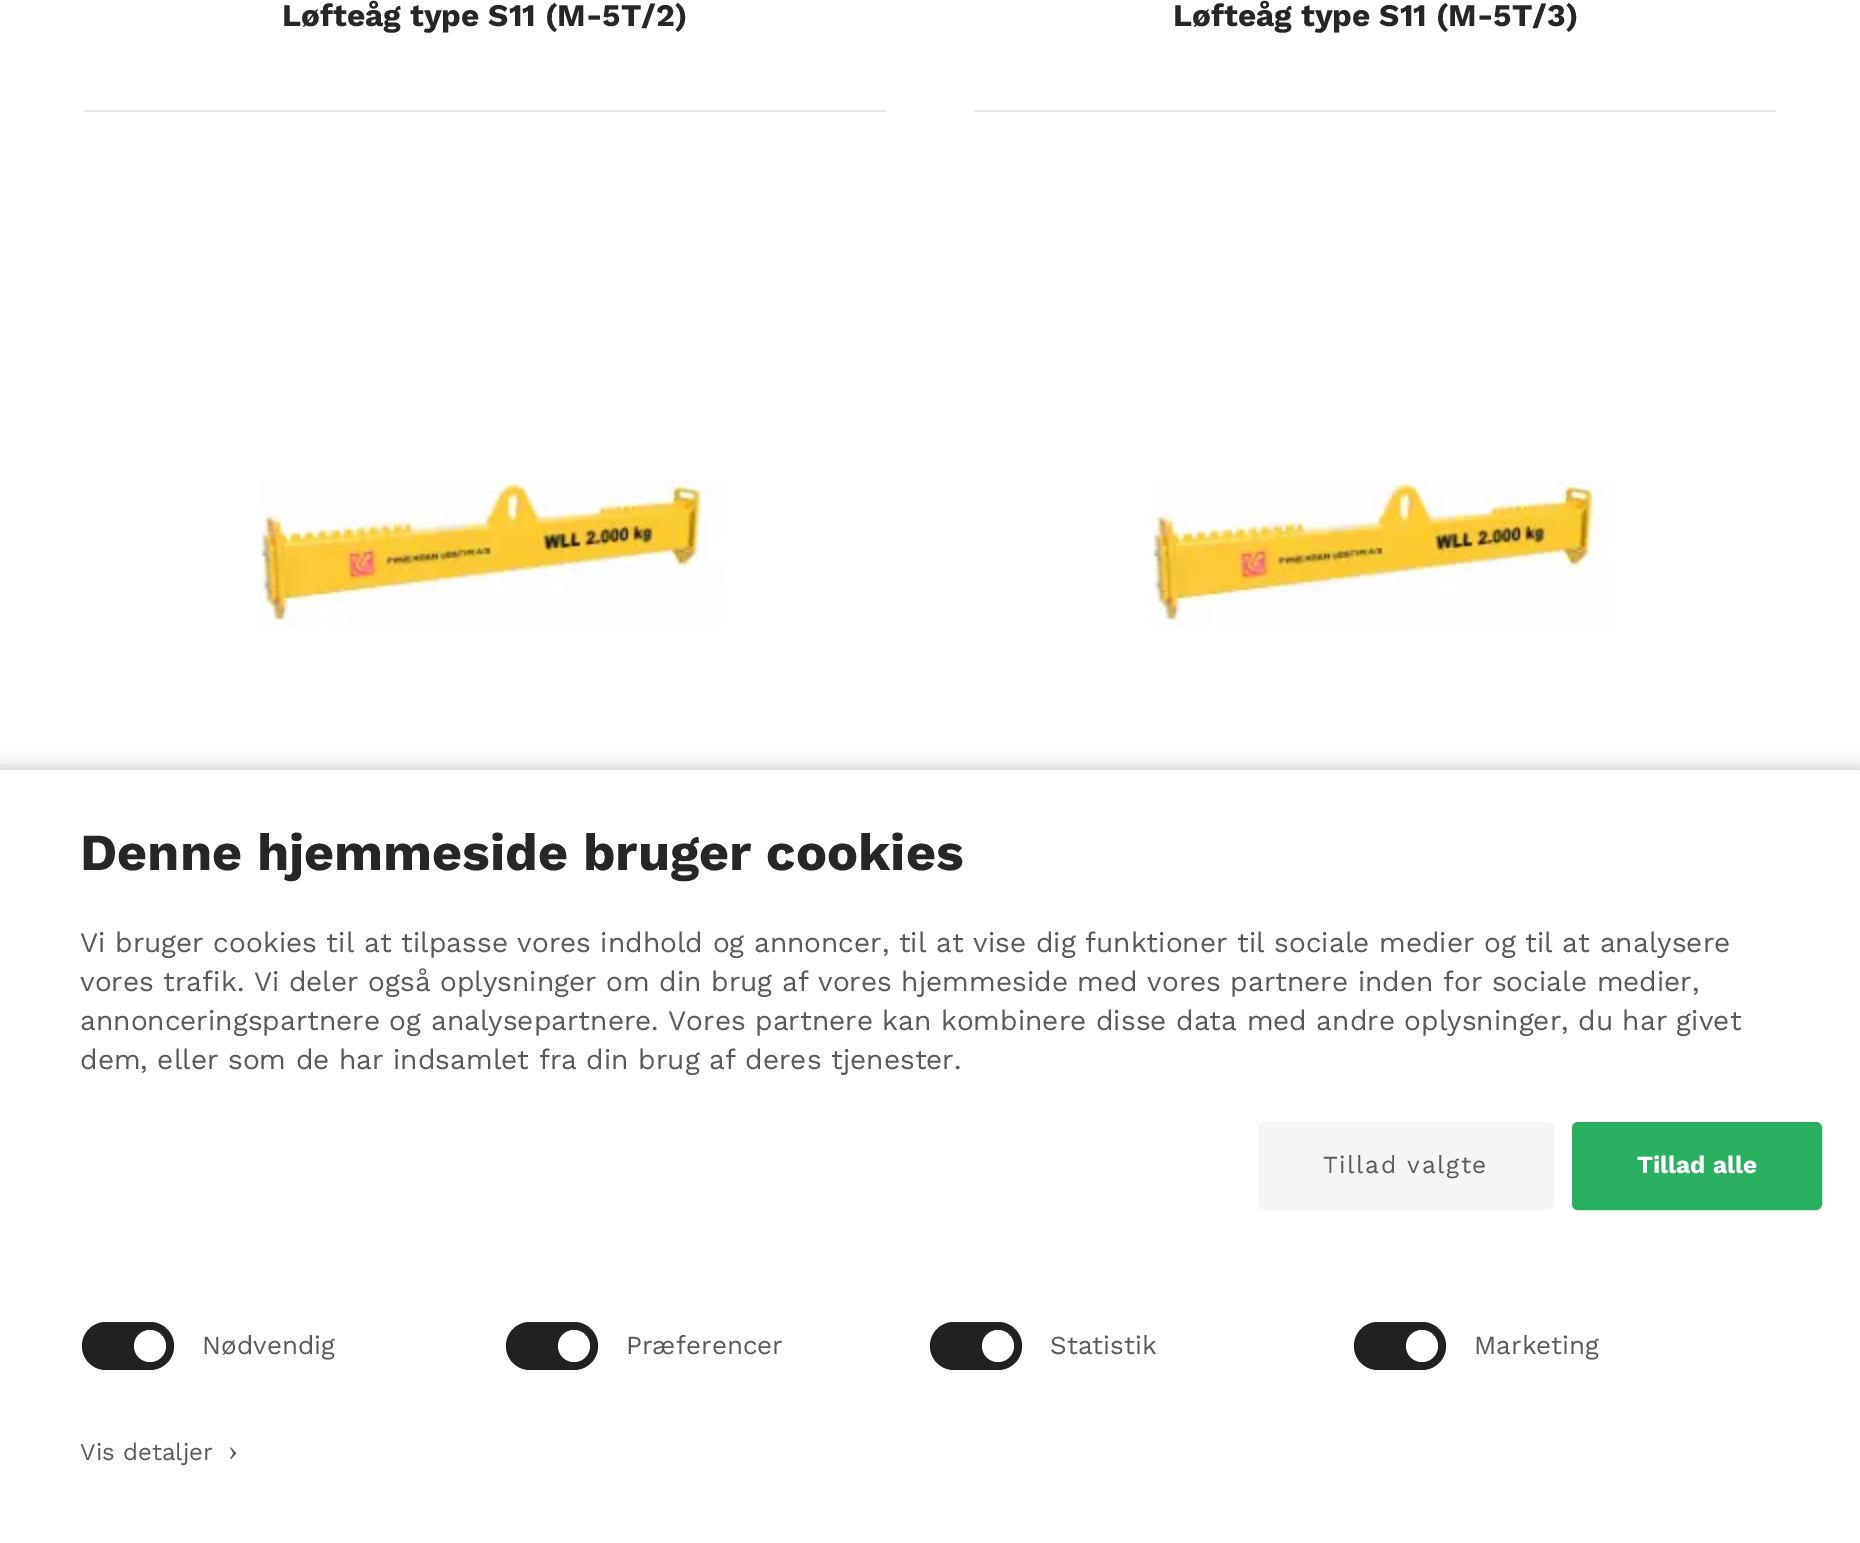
%!PS-Adobe-3.0
%%BoundingBox: 0 0 1860 1543
%%LanguageLevel: 3
%%Pages: 1
%%EndComments
%%BeginProlog
/m { moveto } bind def
/f { fill } bind def
/S { stroke } bind def
/q { gsave } bind def
/Q { grestore } bind def
/w { setlinewidth } bind def
/fn { [ exch dup neg 0 0 3 -1 roll 0 0 ] selectfont } def
/tx { moveto show } def
/bx { rectfill } def
/al { dup .setfillconstantalpha .setstrokeconstantalpha } def
/ci { newpath 0 360 arc closepath } def
/rr { 5 dict begin { /r /h /w /y /x } { exch def } forall
  x r add y moveto x w add y 2 copy h add r arct x w add y h add x 1 index r arct
  x y h add x y r arct x y 2 copy exch w add exch r arct closepath end } def
/sh { 12 dict begin { /a /b /q /h /w /y /x } { exch def } forall gsave /was 0 def
  9 -2 -9 { dup b mul 4 div /e exch def 1 sub .425 mul 2.718 exch exp 1 add a .99 .min exch div /now exch def
    1 1 now sub 1 was sub div sub al /was now def
    w h .min e 2 mul add 0 gt { x e sub y e sub w e 2 mul add h e 2 mul add
      q e add b .6 mul add w h .min 2 div e add .min 0 .max rr fill } if } for grestore end } def
/im { 5 dict begin { /h /w /y /x /name } { exch def } forall
  gsave x y translate w h scale
  w h 8 [w 0 0 h 0 0] name (r) file false 3 colorimage grestore end } def
%%EndProlog
%%BeginSetup
<< /PageSize [1860 1543] /PageUsesTransparency true >> setpagedevice
%%EndSetup
%%Page: 1 1
0 .pushpdf14devicefilter
0 1543 translate 1 -1 scale
4 setmiterlimit
1 setgray
0 0 1860 1543 bx
0.902 setgray
84 110 802 2 bx
/WorkSans-Bold 31.5 fn
0.149 setgray
(Løfteåg type S11 \(M-5T/2\)) 282 26 tx
0.902 setgray
974 110 802 2 bx
0.149 setgray
(Løfteåg type S11 \(M-5T/3\)) 1173 26 tx
(image0.raw) 259 480 465 146 im
(image0.raw) 1151 480 465 146 im
0 setgray
0 772 1860 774 0 5 0.12 sh
-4 766 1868 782 0 10 0.14 sh
1 setgray
0 770 1860 773 bx
/WorkSans-Bold 52 fn
0.149 setgray
(Denne hjemmeside bruger cookies) 80 870 tx
/WorkSans-Regular 28 fn
0.349 setgray
(Vi bruger cookies til at tilpasse vores indhold og annoncer, til at vise dig funktioner til sociale medier og til at analysere) 80 952 tx
(vores trafik. Vi deler også oplysninger om din brug af vores hjemmeside med vores partnere inden for sociale medier,) 80 991 tx
(annonceringspartnere og analysepartnere. Vores partnere kan kombinere disse data med andre oplysninger, du har givet) 80 1030 tx
(dem, eller som de har indsamlet fra din brug af deres tjenester.) 80 1069 tx
0.961 setgray
1258 1122 296 88 6 rr f
/WorkSans-Regular 24.5 fn
0.349 setgray
1323 1173 m 1.5 0 (Tillad valgte) ashow
0.157 0.686 0.373 setrgbcolor
1574 1124 246 84 4 rr q f Q
4 w
S
/WorkSans-Bold 24.5 fn
1 setgray
(Tillad alle) 1637 1173 tx
0.129 setgray
82 1322 92 48 24 rr f
1 setgray
150 1346 16 ci f
/WorkSans-Regular 26 fn
0.349 setgray
(Nødvendig) 202 1354 tx
0.129 setgray
506 1322 92 48 24 rr f
1 setgray
574 1346 16 ci f
0.349 setgray
(Præferencer) 626 1354 tx
0.129 setgray
930 1322 92 48 24 rr f
1 setgray
998 1346 16 ci f
0.349 setgray
(Statistik) 1050 1354 tx
0.129 setgray
1354 1322 92 48 24 rr f
1 setgray
1422 1346 16 ci f
0.349 setgray
(Marketing) 1474 1354 tx
/WorkSans-Regular 24 fn
(Vis detaljer) 80 1460 tx
/LiberationSerif-Regular 30 fn
(›) 228 1460 tx
.poppdf14devicefilter showpage
%%EOF
